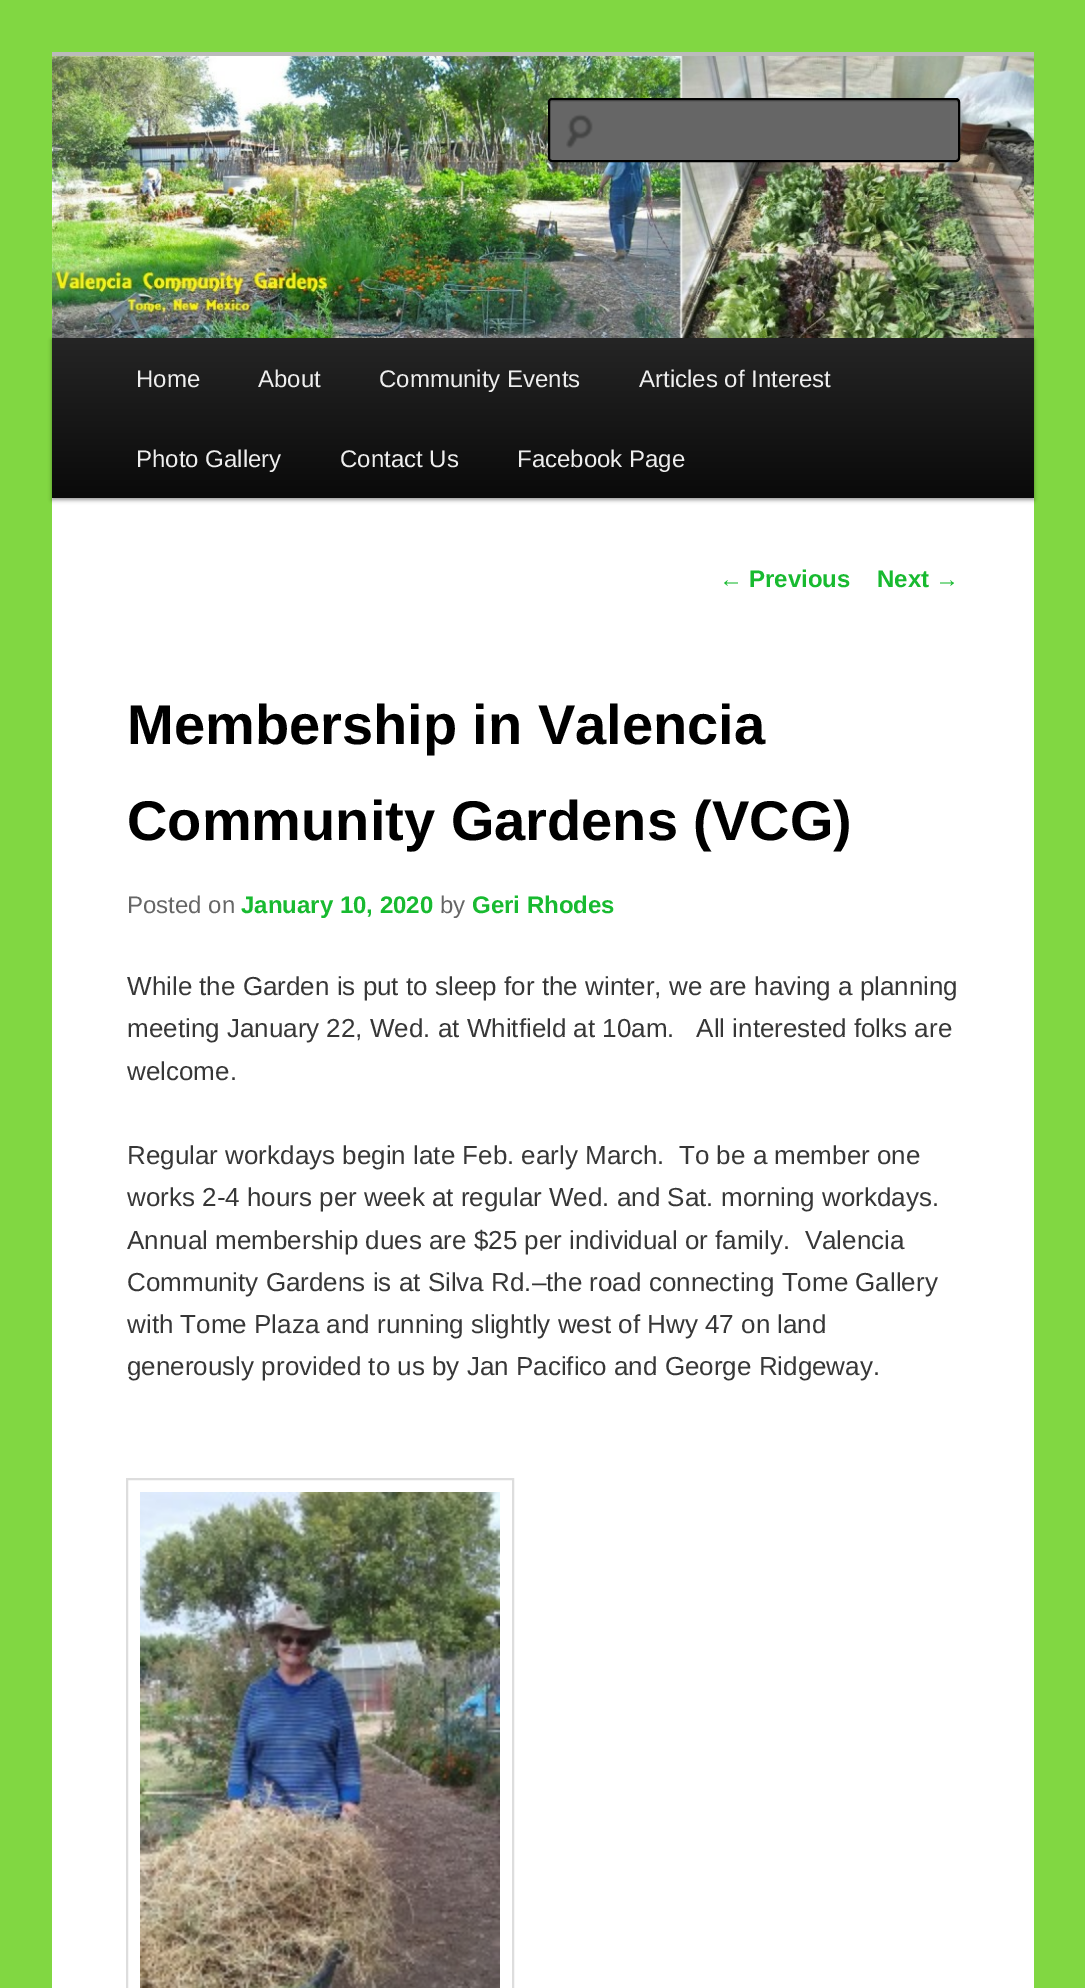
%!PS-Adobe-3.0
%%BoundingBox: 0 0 1085 1988
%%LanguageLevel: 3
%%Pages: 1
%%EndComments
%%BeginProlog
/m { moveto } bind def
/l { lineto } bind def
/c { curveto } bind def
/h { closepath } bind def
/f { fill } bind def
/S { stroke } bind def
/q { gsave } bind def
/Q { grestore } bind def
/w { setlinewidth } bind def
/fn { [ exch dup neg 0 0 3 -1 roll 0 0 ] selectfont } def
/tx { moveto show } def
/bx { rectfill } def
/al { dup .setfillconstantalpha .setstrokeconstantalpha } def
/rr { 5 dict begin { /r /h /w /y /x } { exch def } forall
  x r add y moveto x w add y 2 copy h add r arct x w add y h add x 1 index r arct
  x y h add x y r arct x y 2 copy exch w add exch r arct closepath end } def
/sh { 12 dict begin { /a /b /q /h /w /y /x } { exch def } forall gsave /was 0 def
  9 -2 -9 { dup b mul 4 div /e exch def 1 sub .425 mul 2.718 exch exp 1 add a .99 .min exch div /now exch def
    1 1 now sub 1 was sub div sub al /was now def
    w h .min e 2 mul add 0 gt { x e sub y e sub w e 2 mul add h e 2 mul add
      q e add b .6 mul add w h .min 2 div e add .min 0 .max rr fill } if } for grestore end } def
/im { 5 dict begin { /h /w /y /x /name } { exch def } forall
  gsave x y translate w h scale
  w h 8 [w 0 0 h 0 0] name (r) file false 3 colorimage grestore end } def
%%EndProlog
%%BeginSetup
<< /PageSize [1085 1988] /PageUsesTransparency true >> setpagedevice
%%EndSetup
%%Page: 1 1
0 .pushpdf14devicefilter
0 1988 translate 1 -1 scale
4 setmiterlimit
0.506 0.843 0.259 setrgbcolor
0 0 1085 1988 bx
1 setgray
52 498 982 1490 bx
0.733 setgray
52 52 982 4 bx
0 setgray
52 340 982 160 0 2 0.4 sh
(image0.raw) 52 56 982 282 im
0.4 setgray
548 98 412 64 4 rr f
(image1.raw) 566 114 27 34 im
0.361 setgray
552 102 m 956 102 l 957 102 958 103 958 104 c 958 102 958 100 956 100 c 552 100 l 550 101 l 550 104 l 550 103 551 102 552 102 c h f
0 setgray
2 w
549 99 410 62 3 rr S
q 52 338 m 1034 338 l 1034 498 l 52 498 l h clip newpath
<< /ShadingType 2 /ColorSpace /DeviceRGB /Coords [543 338 543 498] /Extend [true true] /Function << /FunctionType 2 /Domain [0 1] /C0 [0.145 0.145 0.145] /C1 [0.039 0.039 0.039] /N 1 >> >> shfill Q
/LiberationSans-Regular 24 fn
0.933 setgray
(Home) 136 387 tx
(About) 258 387 tx
(Community Events) 379 387 tx
(Articles of Interest) 639 387 tx
(Photo Gallery) 136 467 tx
(Contact Us) 340 467 tx
(Facebook Page) 517 467 tx
0.094 0.729 0.188 setrgbcolor
(←) 719 587 tx
/LiberationSans-Bold 24 fn
(Previous) 749 587 tx
(Next) 877 587 tx
/LiberationSans-Regular 24 fn
(→) 935 587 tx
/LiberationSans-Bold 56 fn
0 setgray
(Membership in Valencia) 127 744 tx
(Community Gardens \(VCG\)) 127 840 tx
/LiberationSans-Regular 24 fn
0.4 setgray
(Posted on) 127 913 tx
/LiberationSans-Bold 24 fn
0.094 0.729 0.188 setrgbcolor
(January 10, 2020) 241 913 tx
/LiberationSans-Regular 24 fn
0.4 setgray
(by) 440 913 tx
/LiberationSans-Bold 24 fn
0.094 0.729 0.188 setrgbcolor
(Geri Rhodes) 472 913 tx
/LiberationSans-Regular 26 fn
0.216 setgray
(While the Garden is put to sleep for the winter, we are having a planning) 127 995 tx
(meeting January 22, Wed. at Whitfield at 10am.   All interested folks are) 127 1037 tx
(welcome.) 127 1080 tx
(Regular workdays begin late Feb. early March.  To be a member one) 127 1164 tx
(works 2-4 hours per week at regular Wed. and Sat. morning workdays.) 127 1206 tx
(Annual membership dues are $25 per individual or family.  Valencia) 127 1249 tx
(Community Gardens is at Silva Rd.–the road connecting Tome Gallery) 127 1291 tx
(with Tome Plaza and running slightly west of Hwy 47 on land) 127 1333 tx
(generously provided to us by Jan Pacifico and George Ridgeway.) 127 1375 tx
0.867 setgray
127 1479 386 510 rectstroke
(image2.raw) 140 1492 360 496 im
.poppdf14devicefilter showpage
%%EOF
